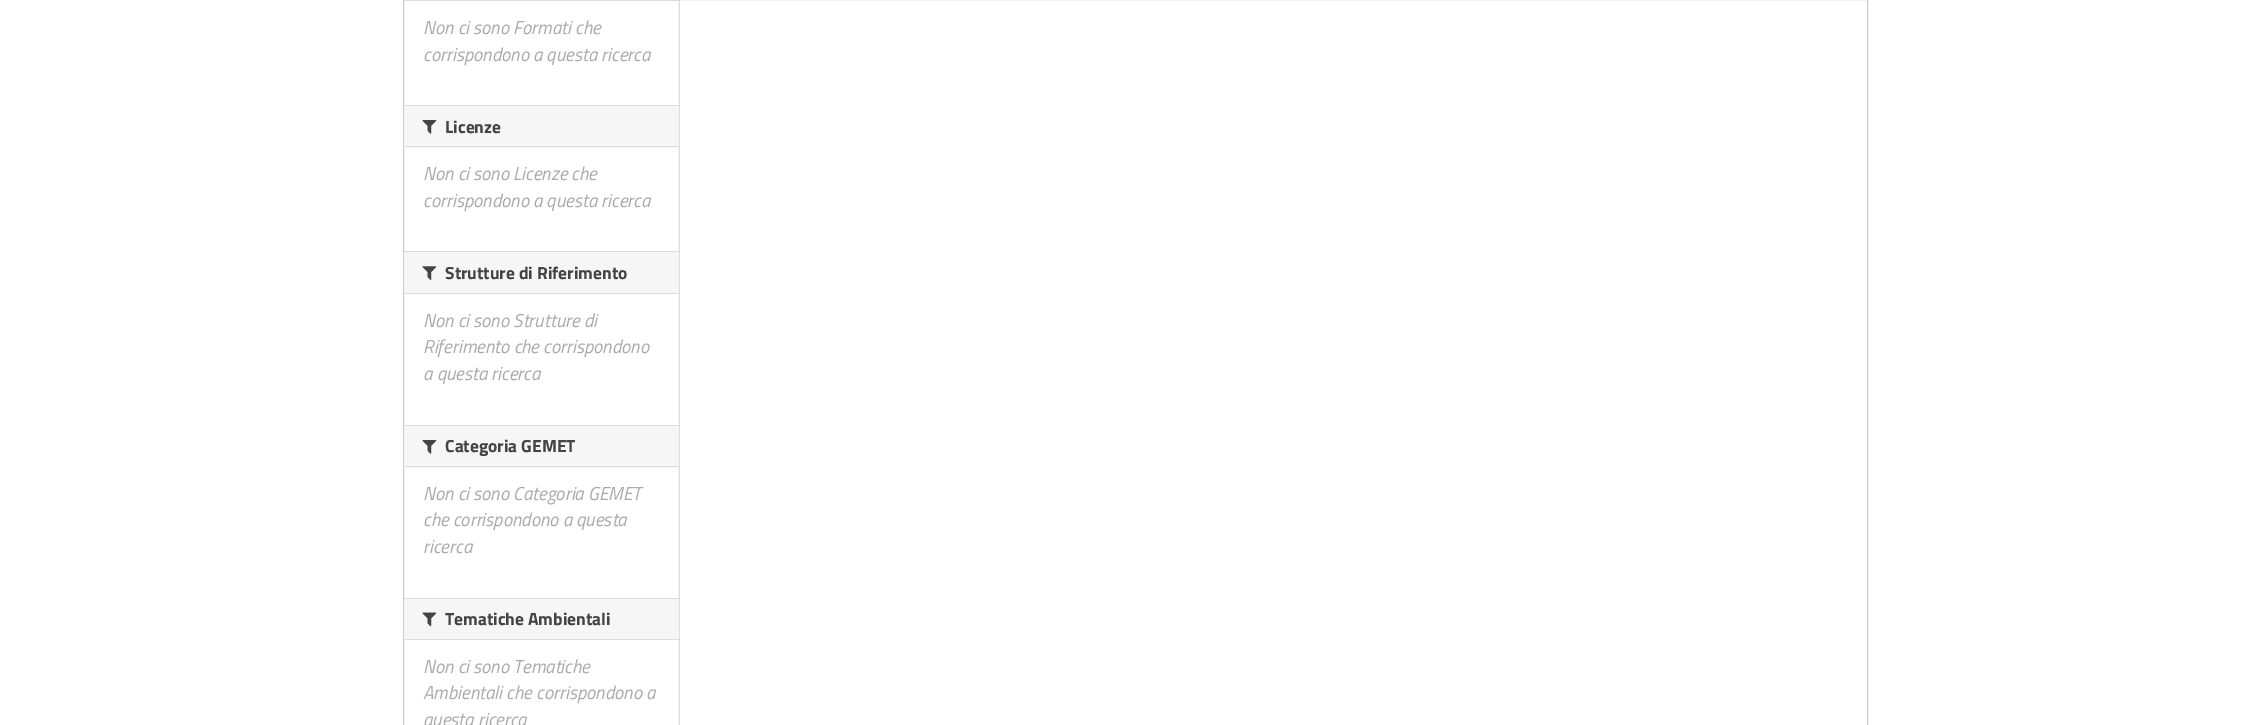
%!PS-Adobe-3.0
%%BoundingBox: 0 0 2267 725
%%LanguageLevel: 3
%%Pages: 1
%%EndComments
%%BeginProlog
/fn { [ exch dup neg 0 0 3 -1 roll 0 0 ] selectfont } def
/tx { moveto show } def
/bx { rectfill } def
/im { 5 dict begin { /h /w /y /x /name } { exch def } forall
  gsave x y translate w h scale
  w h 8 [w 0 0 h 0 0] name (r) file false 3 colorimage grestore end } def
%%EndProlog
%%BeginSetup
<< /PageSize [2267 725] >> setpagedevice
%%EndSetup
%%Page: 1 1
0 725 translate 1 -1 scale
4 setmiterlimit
1 setgray
0 0 2267 725 bx
(image0.raw) 678 0 2 725 im
0.8 setgray
403.5 -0.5 1464 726 rectstroke
0.867 setgray
404 0 275 1 bx
/TitilliumWeb-Italic 18.75 fn
0.667 setgray
(Non ci sono Formati che) 423 34 tx
(corrispondono a questa ricerca) 423 61 tx
0.965 setgray
404 106 275 42 bx
0.867 setgray
404 105 275 1 bx
404 146 275 1 bx
(image1.raw) 422 120 15 14 im
/TitilliumWeb-Bold 17.5 fn
0.267 setgray
(Licenze) 445 133 tx
/TitilliumWeb-Italic 18.75 fn
0.667 setgray
(Non ci sono Licenze che) 423 180 tx
(corrispondono a questa ricerca) 423 207 tx
0.965 setgray
404 252 275 41 bx
0.867 setgray
404 251 275 1 bx
404 293 275 1 bx
(image2.raw) 422 266 15 14 im
/TitilliumWeb-Bold 17.5 fn
0.267 setgray
(Strutture di Riferimento) 445 279 tx
/TitilliumWeb-Italic 18.75 fn
0.667 setgray
(Non ci sono Strutture di) 423 327 tx
(Riferimento che corrispondono) 423 353 tx
(a questa ricerca) 423 380 tx
0.965 setgray
404 426 275 42 bx
0.867 setgray
404 425 275 1 bx
404 466 275 1 bx
(image1.raw) 422 440 15 14 im
/TitilliumWeb-Bold 17.5 fn
0.267 setgray
(Categoria GEMET) 445 452 tx
/TitilliumWeb-Italic 18.75 fn
0.667 setgray
(Non ci sono Categoria GEMET) 423 500 tx
(che corrispondono a questa) 423 526 tx
(ricerca) 423 553 tx
0.965 setgray
404 599 275 40 bx
0.867 setgray
404 598 275 1 bx
404 639 275 1 bx
(image3.raw) 422 612 15 15 im
/TitilliumWeb-Bold 17.5 fn
0.267 setgray
(Tematiche Ambientali) 445 625 tx
/TitilliumWeb-Italic 18.75 fn
0.667 setgray
(Non ci sono Tematiche) 423 673 tx
(Ambientali che corrispondono a) 423 699 tx
(questa ricerca) 423 726 tx
showpage
%%EOF
